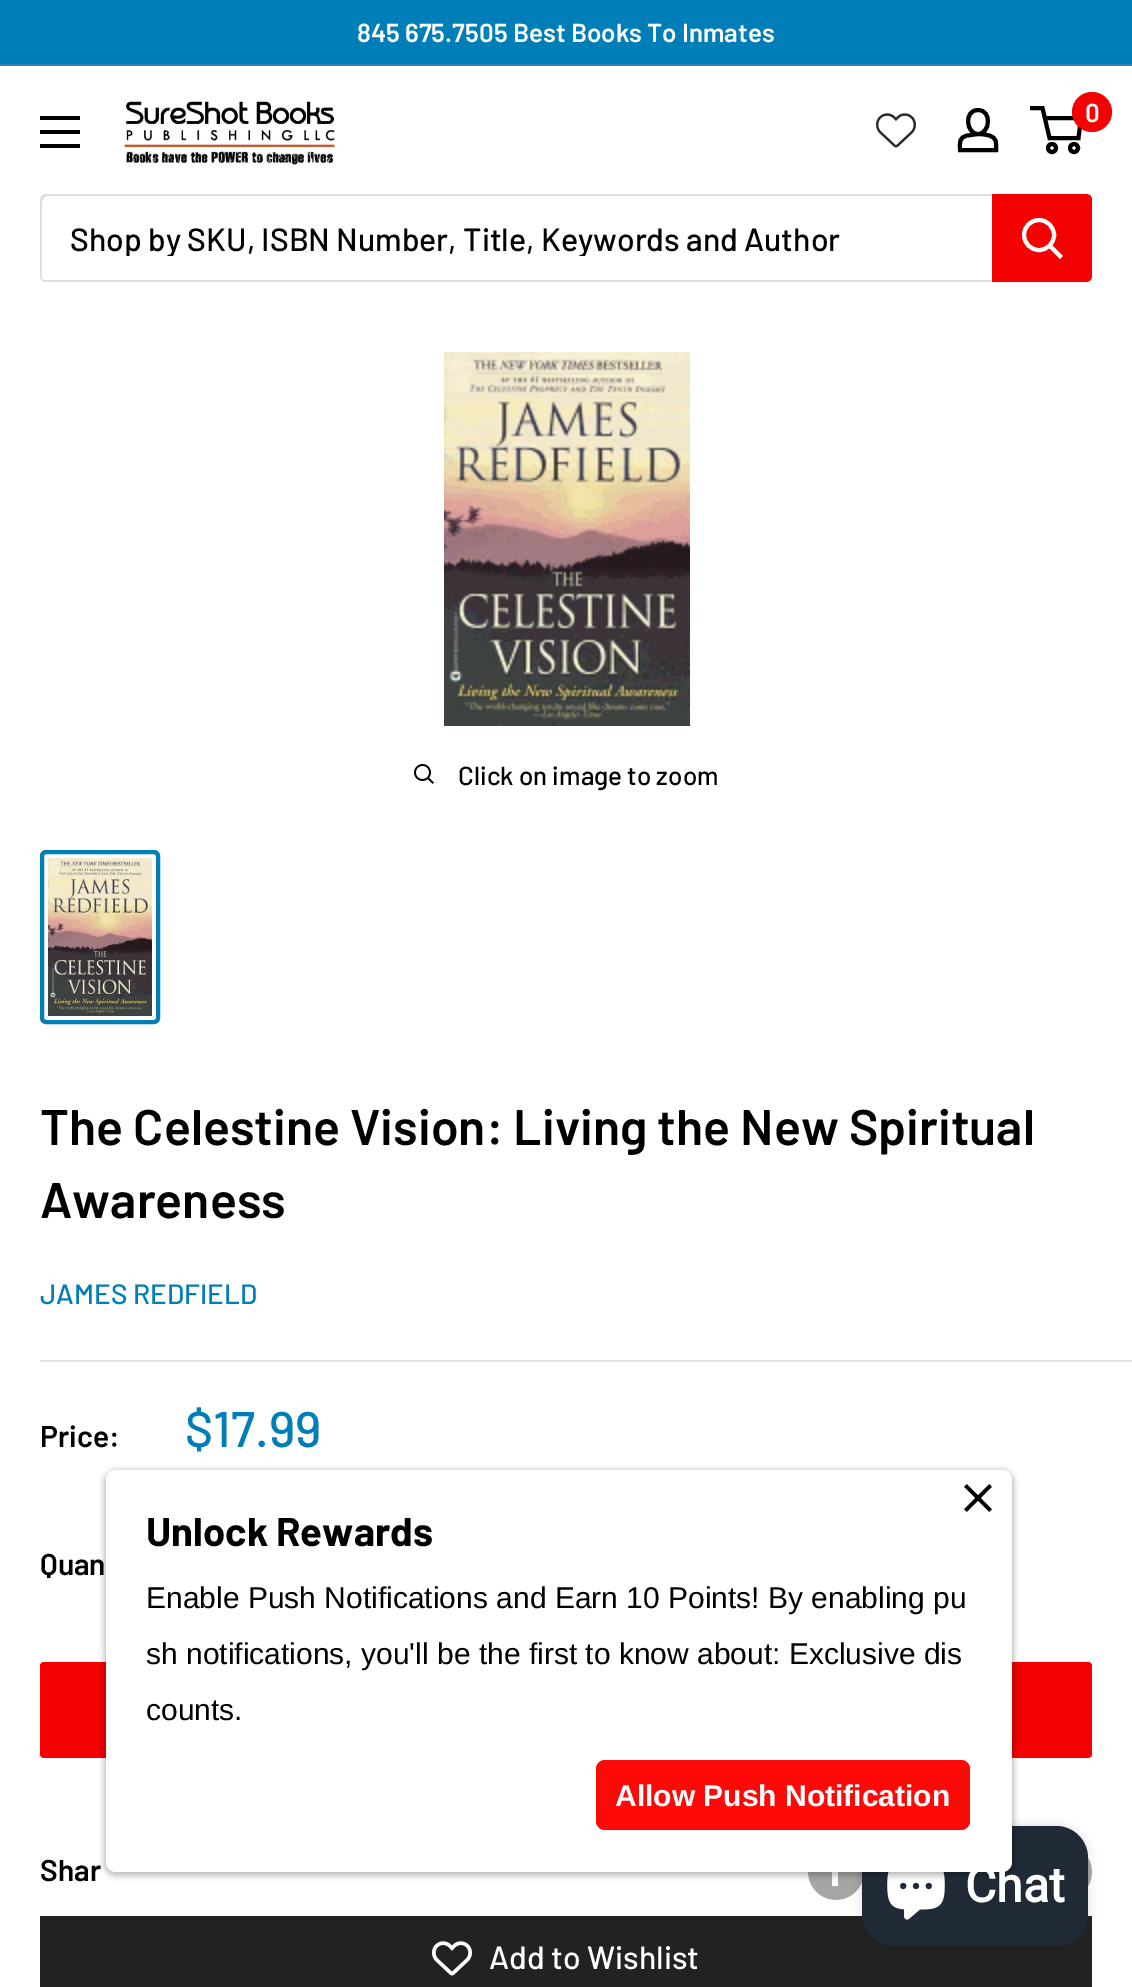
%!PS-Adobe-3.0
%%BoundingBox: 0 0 1132 1987
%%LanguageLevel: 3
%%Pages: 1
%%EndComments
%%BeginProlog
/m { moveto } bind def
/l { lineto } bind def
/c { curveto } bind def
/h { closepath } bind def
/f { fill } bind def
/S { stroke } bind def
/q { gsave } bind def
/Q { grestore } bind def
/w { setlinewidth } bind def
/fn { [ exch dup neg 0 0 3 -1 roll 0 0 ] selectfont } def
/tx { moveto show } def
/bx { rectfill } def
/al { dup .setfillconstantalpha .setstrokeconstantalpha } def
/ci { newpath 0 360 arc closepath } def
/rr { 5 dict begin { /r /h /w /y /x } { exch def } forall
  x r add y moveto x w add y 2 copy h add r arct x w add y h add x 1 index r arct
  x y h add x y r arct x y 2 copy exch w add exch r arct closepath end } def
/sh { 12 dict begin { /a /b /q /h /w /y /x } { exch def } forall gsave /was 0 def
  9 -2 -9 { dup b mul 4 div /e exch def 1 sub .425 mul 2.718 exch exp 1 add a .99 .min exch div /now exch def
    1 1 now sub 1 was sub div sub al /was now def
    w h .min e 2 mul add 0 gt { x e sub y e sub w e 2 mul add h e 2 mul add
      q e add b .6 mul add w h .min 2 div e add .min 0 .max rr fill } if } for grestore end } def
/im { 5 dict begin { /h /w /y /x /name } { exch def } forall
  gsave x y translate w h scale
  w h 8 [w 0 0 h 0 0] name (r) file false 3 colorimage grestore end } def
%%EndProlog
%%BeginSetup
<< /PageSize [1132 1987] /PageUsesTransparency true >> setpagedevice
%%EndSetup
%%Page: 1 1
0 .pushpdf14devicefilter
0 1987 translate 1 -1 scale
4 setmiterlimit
1 setgray
0 0 1132 1987 bx
0 0.494 0.722 setrgbcolor
0 0 1132 64 bx
0.161 0.518 0.682 setrgbcolor
0 64 1132 2 bx
/Barlow-SemiBold 26 fn
1 setgray
(845 675.7505 Best Books To Inmates) 357 42 tx
(image0.raw) 124 101 211 64 im
(image1.raw) 876 113 40 35 im
0 setgray
4 w
978 134 m 982 134 985.5 134.5 989 135.5 c 997.5 138 996 142.5 996 150 c 960 150 l 960 142 958.5 137.5 967.5 135.5 c h 978 134 m 966 134 963.5 110 978 110 c 992.5 110 990 134 978 134 c h S
1052 148 4 ci S
1074 148 4 ci S
1044.5 118 m 1081 118 l 1078.5 138 l 1049.5 138 l 1042.5 108 l 1030 108 l S
0.957 0.008 0.008 setrgbcolor
1092 112 20 ci f
1 setgray
(0) 1085 122 tx
0 setgray
40 144 m 80 144 l 80 148 l 40 148 l h 40 116 m 80 116 l 80 120 l 40 120 l h 40 130 m 80 130 l 80 134 l 40 134 l h eofill
0.863 0.871 0.878 setrgbcolor
41 279 m 42 281 44 282 46 282 c 1086 282 l 1089 282 1092 279 1092 276 c 1092 200 l 1092 198 1091 196 1089 195 c 1090 196 1090 197 1090 198 c 1090 274 l 1090 277 1087 280 1084 280 c 44 280 l 43 280 42 280 41 279 c h f
0.3 al
0.541 0.573 0.592 setrgbcolor
48 196 m 1088 196 l 1091 197 l 1090 195 1088 194 1086 194 c 46 194 l 43 194 40 197 40 200 c 40 276 l 40 278 41 280 43 281 c 42 280 42 279 42 278 c 42 202 l 42 199 45 196 48 196 c h f
q
70 218 892 38 rectclip
/Barlow-Medium 32 fn
1 al
0 setgray
(Shop by SKU, ISBN Number, Title, Keywords and Author) 70 251 tx
Q
1 al
0.957 0.008 0.008 setrgbcolor
992 194 m 1086 194 l 1089.5 194 1092 196.5 1092 200 c 1092 276 l 1092 279.5 1089.5 282 1086 282 c 992 282 l h f
1 setgray
2 setlinecap
1060 256 m 1050 246 l S
0 setlinecap
1039 235 15 ci S
(image2.raw) 444 352 246 374 im
(image3.raw) 414 764 20 20 im
/Barlow-Medium 26 fn
0 setgray
(Click on image to zoom) 458 785 tx
0 0.494 0.722 setrgbcolor
42 852 116 170 4 rr S
(image4.raw) 48 858 104 158 im
/Barlow-SemiBold 50 fn
0 setgray
(The Celestine Vision: Living the New Spiritual) 40 1145 tx
(Awareness) 40 1218 tx
/Barlow-Medium 28 fn
0 0.494 0.722 setrgbcolor
(JAMES REDFIELD) 40 1304 tx
0.882 0.89 0.894 setrgbcolor
40 1360 1092 2 bx
/Barlow-SemiBold 30 fn
0 setgray
(Price:) 40 1447 tx
/Barlow-Medium 50 fn
0 0.494 0.722 setrgbcolor
($17.99) 185 1447 tx
/Barlow-SemiBold 30 fn
0 setgray
(Quan) 40 1575 tx
0.957 0.008 0.008 setrgbcolor
40 1662 1052 96 4 rr f
0 setgray
(Shar) 40 1881 tx
(image5.raw) 808 1872 54 28 im
(image6.raw) 1087 1856 5 30 im
0.133 setgray
40 1916 1052 71 bx
(image7.raw) 432 1941 40 35 im
/Barlow-Medium 32 fn
1 setgray
(Add to Wishlist) 489 1969 tx
0 setgray
862 1826 226 120 32 5 0.15 sh
0.125 0.165 0.212 setrgbcolor
862 1826 226 120 32 rr f
(image9.raw) 887 1872 58 48 im
0 setgray
104 1470 910 406 12 3 0.25 sh
1 setgray
106 1470 906 402 10 rr f
(image8.raw) 964 1484 28 28 im
/Barlow-Bold 40 fn
0 setgray
(Unlock Rewards) 146 1546 tx
/LiberationSans-Regular 30 fn
(Enable Push Notifications and Earn 10 Points! By enabling pu) 146 1608 tx
(sh notifications, you'll be the first to know about: Exclusive dis) 146 1664 tx
(counts.) 146 1720 tx
1 0.031 0.031 setrgbcolor
595 1759 376 72 9 rr q f Q
1 setgray
2 w
S
1 0.031 0.031 setrgbcolor
596 1760 374 70 10 rr f
/LiberationSans-Bold 30 fn
1 setgray
(Allow Push Notification) 615 1806 tx
/Roboto-Bold 48 fn
(Chat) 965 1902 tx
.poppdf14devicefilter showpage
%%EOF
